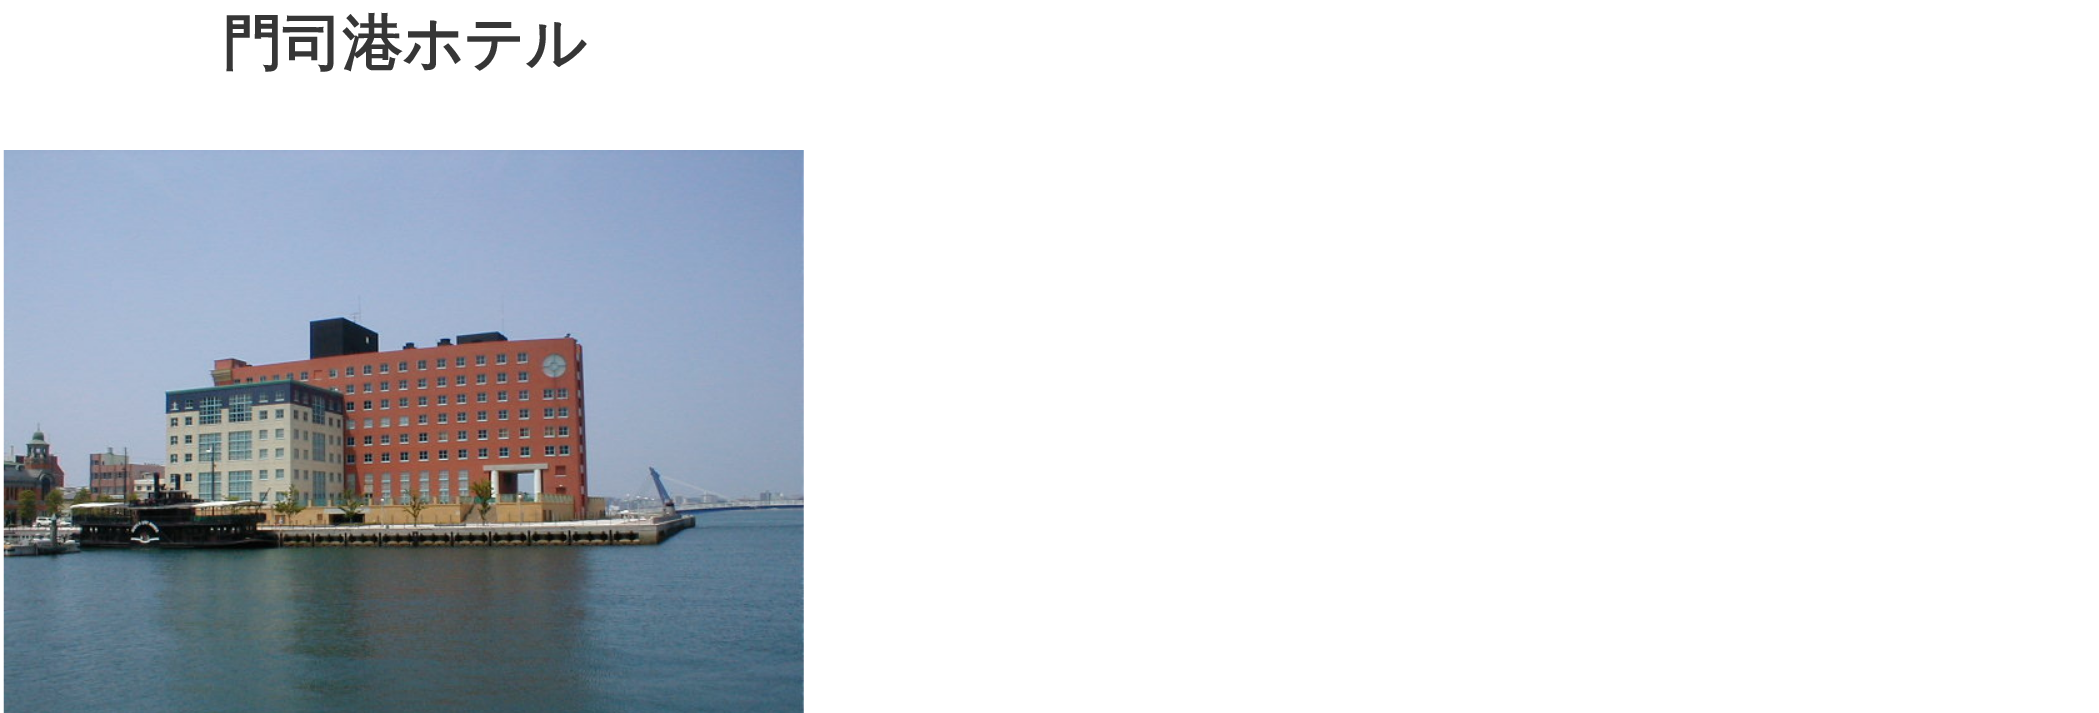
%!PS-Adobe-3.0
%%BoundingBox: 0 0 2099 713
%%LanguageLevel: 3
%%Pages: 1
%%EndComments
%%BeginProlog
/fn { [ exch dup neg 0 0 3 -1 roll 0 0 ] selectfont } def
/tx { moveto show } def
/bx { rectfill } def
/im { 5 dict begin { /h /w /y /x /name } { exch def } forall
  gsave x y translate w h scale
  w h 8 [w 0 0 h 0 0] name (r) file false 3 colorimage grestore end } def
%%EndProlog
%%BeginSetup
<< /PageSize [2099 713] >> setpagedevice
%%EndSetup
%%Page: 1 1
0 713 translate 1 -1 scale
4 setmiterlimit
1 setgray
0 0 2099 713 bx
/WenQuanYiZenHei-Bold 60 fn
0.212 setgray
(門司港ホテル) 222 64 tx
(image0.raw) 3 150 801 563 im
showpage
%%EOF
